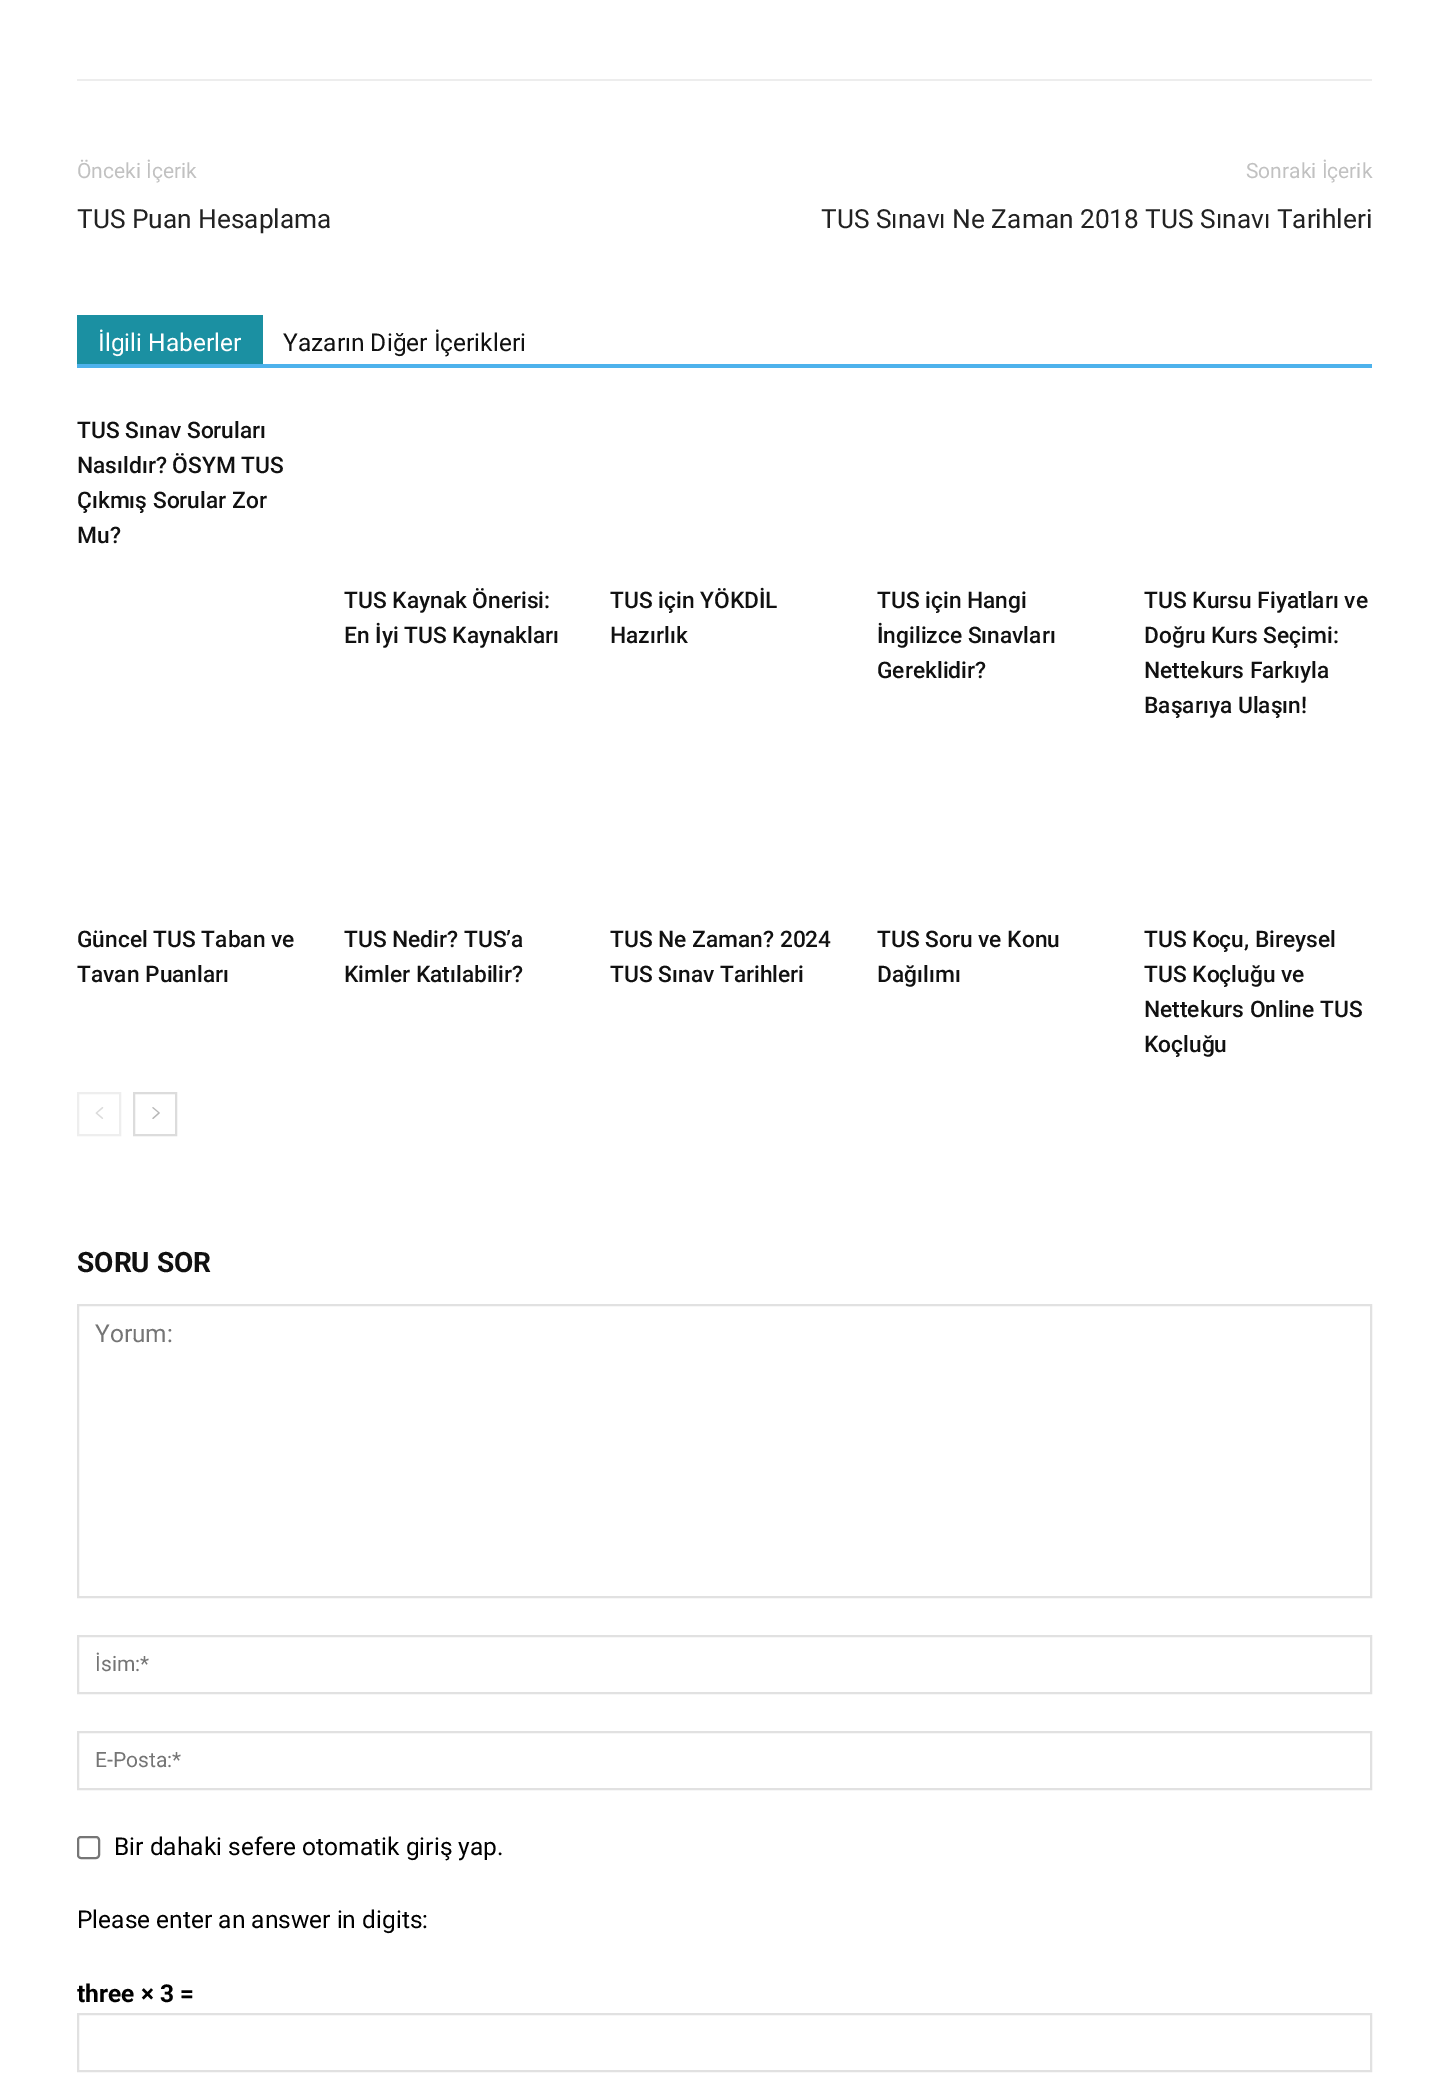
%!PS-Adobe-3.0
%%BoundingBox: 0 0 1448 2096
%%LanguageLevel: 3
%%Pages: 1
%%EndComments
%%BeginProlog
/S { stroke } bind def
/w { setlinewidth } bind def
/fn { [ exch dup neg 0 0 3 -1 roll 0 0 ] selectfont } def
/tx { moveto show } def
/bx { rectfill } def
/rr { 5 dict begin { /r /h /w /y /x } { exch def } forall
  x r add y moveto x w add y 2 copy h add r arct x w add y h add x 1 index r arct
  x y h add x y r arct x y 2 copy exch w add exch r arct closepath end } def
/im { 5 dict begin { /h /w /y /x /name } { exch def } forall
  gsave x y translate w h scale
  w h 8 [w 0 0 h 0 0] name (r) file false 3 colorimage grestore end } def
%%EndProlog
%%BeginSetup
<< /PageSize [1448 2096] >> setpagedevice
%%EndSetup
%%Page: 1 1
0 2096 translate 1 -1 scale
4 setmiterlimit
1 setgray
0 0 1448 2096 bx
0.929 setgray
77 79 1295 2 bx
/Roboto-Regular 21 fn
0.757 setgray
(Önceki İçerik) 77 178 tx
/Roboto-Regular 26.25 fn
0.133 setgray
(TUS Puan Hesaplama) 77 228 tx
/Roboto-Regular 21 fn
0.757 setgray
(Sonraki İçerik) 1246 178 tx
/Roboto-Regular 26.25 fn
0.133 setgray
(TUS Sınavı Ne Zaman 2018 TUS Sınavı Tarihleri) 821 228 tx
0.302 0.698 0.925 setrgbcolor
77 364 1295 4 bx
0.106 0.565 0.635 setrgbcolor
77 315 186 49 bx
/Roboto-Regular 24.5 fn
1 setgray
(İlgili Haberler) 98 351 tx
0.067 setgray
(Yazarın Diğer İçerikleri) 283 351 tx
/Roboto-Medium 22.75 fn
(TUS Sınav Soruları) 77 438 tx
(Nasıldır? ÖSYM TUS) 77 473 tx
(Çıkmış Sorular Zor) 77 508 tx
(Mu?) 77 543 tx
(TUS Kaynak Önerisi:) 344 608 tx
(En İyi TUS Kaynakları) 344 643 tx
(TUS için YÖKDİL) 610 608 tx
(Hazırlık) 610 643 tx
(TUS için Hangi) 877 608 tx
(İngilizce Sınavları) 877 643 tx
(Gereklidir?) 877 678 tx
(TUS Kursu Fiyatları ve) 1144 608 tx
(Doğru Kurs Seçimi:) 1144 643 tx
(Nettekurs Farkıyla) 1144 678 tx
(Başarıya Ulaşın!) 1144 713 tx
(Güncel TUS Taban ve) 77 947 tx
(Tavan Puanları) 77 982 tx
(TUS Nedir? TUS’a) 344 947 tx
(Kimler Katılabilir?) 344 982 tx
(TUS Ne Zaman? 2024) 610 947 tx
(TUS Sınav Tarihleri) 610 982 tx
(TUS Soru ve Konu) 877 947 tx
(Dağılımı) 877 982 tx
(TUS Koçu, Bireysel) 1144 947 tx
(TUS Koçluğu ve) 1144 982 tx
(Nettekurs Online TUS) 1144 1017 tx
(Koçluğu) 1144 1052 tx
0.933 setgray
2 w
78 1093 42 42 rectstroke
(image0.raw) 95 1107 9 12 im
0.863 setgray
134 1093 42 42 rectstroke
(image1.raw) 152 1107 8 12 im
/Roboto-Bold 28 fn
0.067 setgray
(SORU SOR) 77 1272 tx
0.882 setgray
78 1305 1293 292 rectstroke
/Roboto-Regular 24.5 fn
0.459 setgray
(Yorum:) 95 1342 tx
0.882 setgray
78 1636 1293 57 rectstroke
/Roboto-Regular 21 fn
0.459 setgray
(İsim:*) 95 1671 tx
0.882 setgray
78 1732 1293 57 rectstroke
0.459 setgray
(E-Posta:*) 95 1767 tx
0.463 setgray
78 1837 21 21 3 rr S
/Roboto-Regular 24.5 fn
0 setgray
(Bir dahaki sefere otomatik giriş yap.) 114 1855 tx
(Please enter an answer in digits:) 77 1928 tx
/Roboto-Bold 24.5 fn
(three × 3 =) 77 2002 tx
0.882 setgray
78 2014 1293 57 rectstroke
showpage
%%EOF
